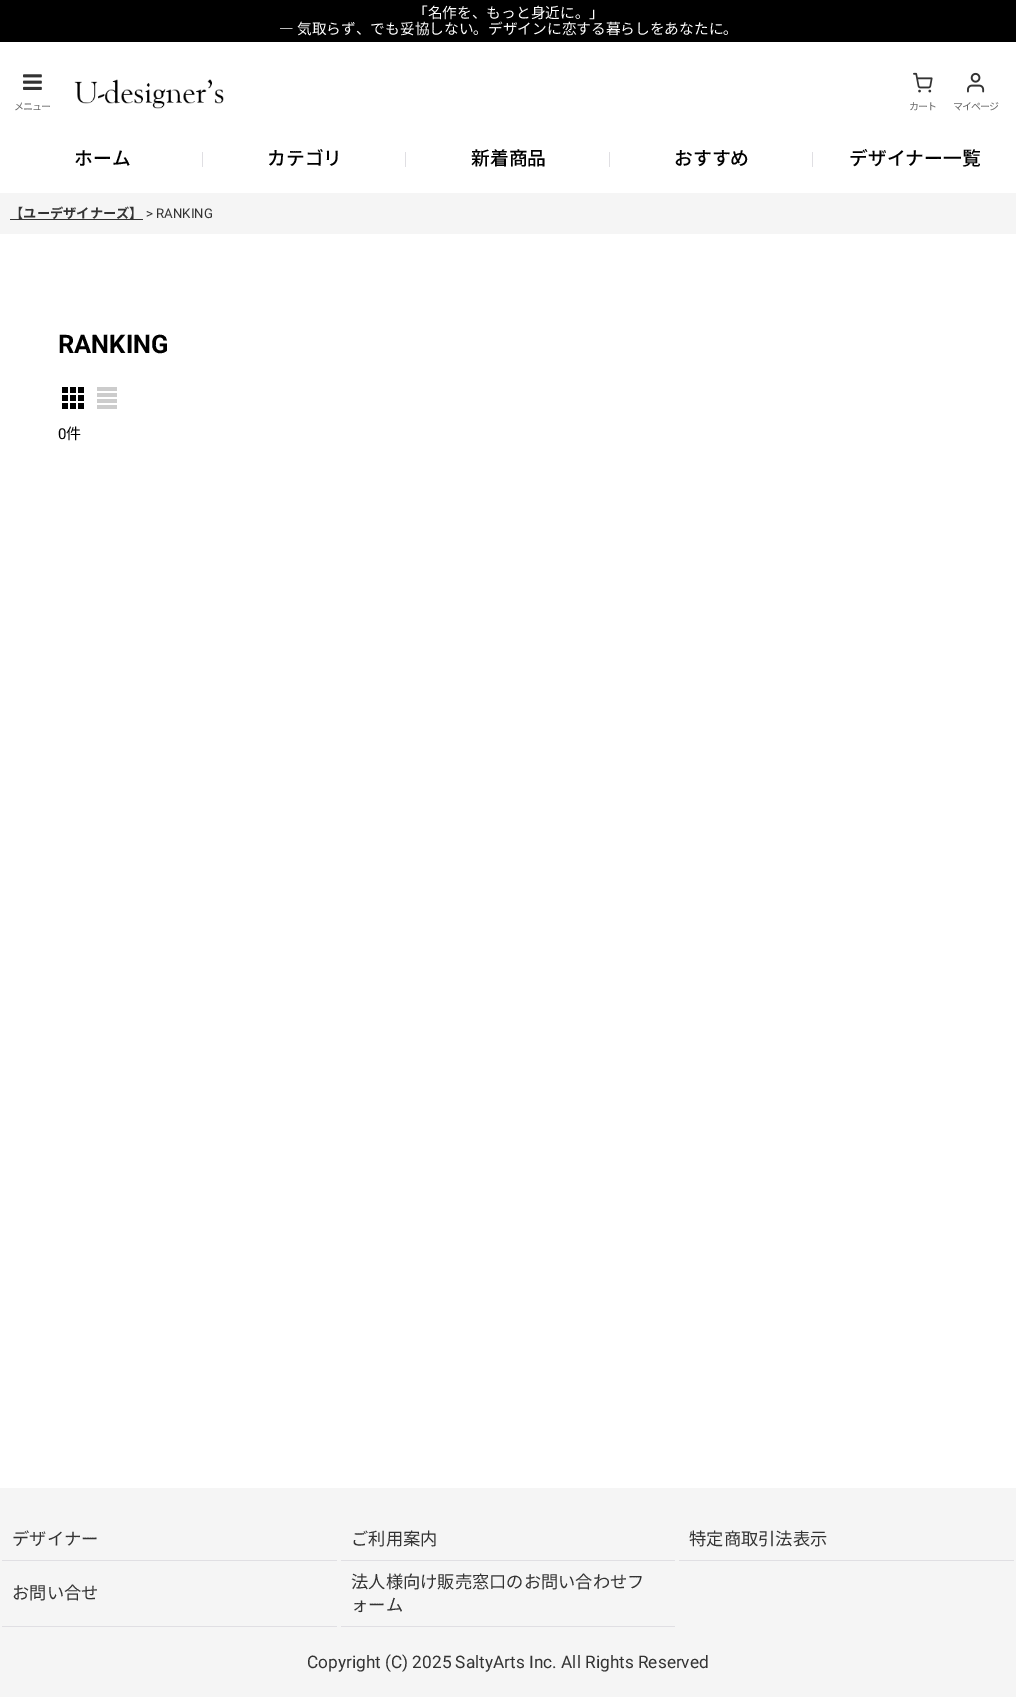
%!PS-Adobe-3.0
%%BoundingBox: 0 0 1016 1697
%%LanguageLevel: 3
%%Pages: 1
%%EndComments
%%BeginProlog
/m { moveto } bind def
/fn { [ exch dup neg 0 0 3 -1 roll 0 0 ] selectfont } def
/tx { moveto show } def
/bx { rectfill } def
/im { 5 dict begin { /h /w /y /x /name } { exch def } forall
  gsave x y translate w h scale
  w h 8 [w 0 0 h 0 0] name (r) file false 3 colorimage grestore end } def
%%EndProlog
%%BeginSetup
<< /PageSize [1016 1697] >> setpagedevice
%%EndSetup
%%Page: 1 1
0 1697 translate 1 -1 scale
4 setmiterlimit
1 setgray
0 0 1016 1697 bx
0 setgray
0 0 1016 42 bx
/NotoSansJP-Regular 14.7 fn
1 setgray
(「名作を、もっと身近に。」) 413 18 tx
(― 気取らず、でも妥協しない。デザインに恋する暮らしをあなたに。) 279 34 tx
(image0.raw) 23 74 19 16 im
/NotoSansJP-Regular 10 fn
0.4 setgray
14 110 m -1 0 (メニュー) ashow
(image1.raw) 74 79 150 30 im
(image2.raw) 913 72 20 21 im
909 110 m -1 0 (カート) ashow
(image3.raw) 967 72 18 21 im
953 110 m -1 0 (マイページ) ashow
/NotoSansJP-Medium 18.75 fn
0 setgray
(ホーム) 74 165 tx
0.878 0.875 0.89 setrgbcolor
202 152 1 15 bx
0 setgray
(カテゴリ) 267 165 tx
0.878 0.875 0.89 setrgbcolor
405 152 1 15 bx
0 setgray
(新着商品) 471 165 tx
0.878 0.875 0.89 setrgbcolor
609 152 1 15 bx
0 setgray
(おすすめ) 674 165 tx
0.878 0.875 0.89 setrgbcolor
812 152 1 15 bx
0 setgray
(デザイナー一覧) 849 165 tx
0.961 setgray
0 193 1016 41 bx
0.2 setgray
10 219 133 1 bx
/NotoSansJP-Bold 13.25 fn
(【ユーデザイナーズ】) 10 218 tx
/Roboto-Regular 13.25 fn
(> RANKING) 146 218 tx
/Roboto-Bold 25.5 fn
0 setgray
(RANKING) 58 353 tx
(image4.raw) 62 387 22 22 im
(image5.raw) 97 387 20 22 im
/Roboto-Regular 15 fn
(0) 58 439 tx
/NotoSansJP-Regular 15 fn
(件) 66 439 tx
0.961 setgray
0 1488 1016 209 bx
0.878 0.875 0.89 setrgbcolor
2 1560 335 1 bx
/NotoSansJP-Regular 17.25 fn
0.2 setgray
(デザイナー) 12 1545 tx
0.878 0.875 0.89 setrgbcolor
341 1560 334 1 bx
0.2 setgray
(ご利用案内) 351 1545 tx
0.878 0.875 0.89 setrgbcolor
679 1560 335 1 bx
0.2 setgray
(特定商取引法表示) 689 1545 tx
0.878 0.875 0.89 setrgbcolor
2 1626 335 1 bx
0.2 setgray
(お問い合せ) 12 1599 tx
0.878 0.875 0.89 setrgbcolor
341 1626 334 1 bx
0.2 setgray
(法人様向け販売窓口のお問い合わせフ) 351 1588 tx
(ォーム) 351 1611 tx
/Roboto-Regular 17.25 fn
(Copyright \(C\) 2025 SaltyArts Inc. All Rights Reserved) 307 1668 tx
showpage
%%EOF
